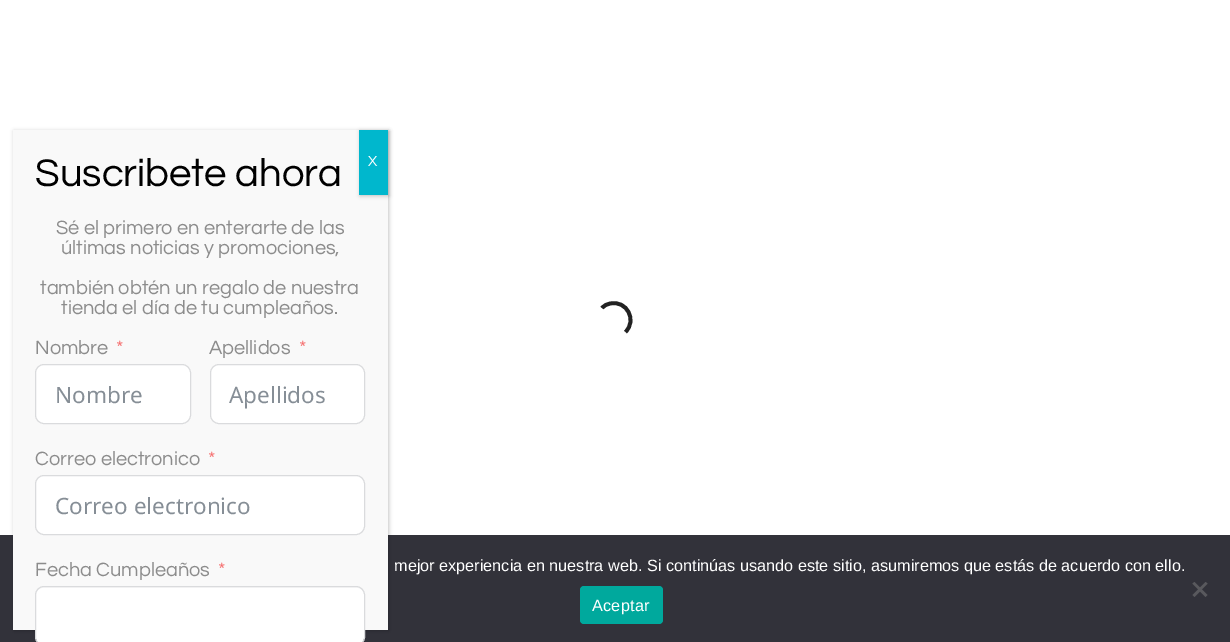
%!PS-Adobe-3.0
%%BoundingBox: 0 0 1230 642
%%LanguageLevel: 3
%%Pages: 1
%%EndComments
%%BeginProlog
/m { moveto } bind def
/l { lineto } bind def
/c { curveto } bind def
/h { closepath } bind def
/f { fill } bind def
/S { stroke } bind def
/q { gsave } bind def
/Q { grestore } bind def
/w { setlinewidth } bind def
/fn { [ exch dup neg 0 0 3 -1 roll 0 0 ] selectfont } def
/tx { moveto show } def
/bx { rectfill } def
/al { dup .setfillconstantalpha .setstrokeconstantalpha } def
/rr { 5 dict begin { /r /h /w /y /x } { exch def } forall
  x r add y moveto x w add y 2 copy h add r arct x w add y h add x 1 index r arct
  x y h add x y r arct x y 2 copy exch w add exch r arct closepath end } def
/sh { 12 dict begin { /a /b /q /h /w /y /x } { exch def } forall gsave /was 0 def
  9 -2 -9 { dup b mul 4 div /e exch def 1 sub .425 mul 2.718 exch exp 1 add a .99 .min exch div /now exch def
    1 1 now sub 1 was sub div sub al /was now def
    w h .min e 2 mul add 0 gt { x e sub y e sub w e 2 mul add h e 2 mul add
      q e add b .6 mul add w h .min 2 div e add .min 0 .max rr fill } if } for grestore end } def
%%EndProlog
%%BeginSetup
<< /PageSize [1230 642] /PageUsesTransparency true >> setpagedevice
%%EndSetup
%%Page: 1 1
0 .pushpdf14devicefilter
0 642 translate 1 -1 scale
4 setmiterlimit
1 setgray
0 0 1230 642 bx
0.196 0.196 0.227 setrgbcolor
0 535 1230 107 bx
0.008 setgray
14 131 375 500 0 2 0.23 sh
0.976 setgray
13 130 375 500 bx
/Questrial-Regular 40 fn
0 setgray
(Suscribete ahora) 35 186 tx
0.008 setgray
360 131 29 65 0 2 0.23 sh
0 0.718 0.804 setrgbcolor
359 130 29 65 bx
/Questrial-Regular 15 fn
1 setgray
(X) 368 166 tx
/Questrial-Regular 20 fn
0.549 setgray
(Sé el primero en enterarte de las) 56 234 tx
(últimas noticias y promociones,) 61 254 tx
(también obtén un regalo de nuestra) 40 294 tx
(tienda el día de tu cumpleaños.) 61 314 tx
(Nombre) 35 354 tx
0.961 0.424 0.424 setrgbcolor
(*) 116 354 tx
1 setgray
35.5 364.5 155 59 8.5 rr q f Q
0.855 0.859 0.867 setrgbcolor
S
/NotoSans-Regular 22.5 fn
0.525 0.557 0.588 setrgbcolor
(Nombre) 55 403 tx
/Questrial-Regular 20 fn
0.549 setgray
(Apellidos) 209 354 tx
0.961 0.424 0.424 setrgbcolor
(*) 299 354 tx
1 setgray
210.5 364.5 154 59 8.5 rr q f Q
0.855 0.859 0.867 setrgbcolor
S
/NotoSans-Regular 22.5 fn
0.525 0.557 0.588 setrgbcolor
(Apellidos) 229 403 tx
/Questrial-Regular 20 fn
0.549 setgray
(Correo electronico) 35 465 tx
0.961 0.424 0.424 setrgbcolor
(*) 208 465 tx
1 setgray
35.5 475.5 329 59 8.5 rr q f Q
0.855 0.859 0.867 setrgbcolor
S
/NotoSans-Regular 22.5 fn
0.525 0.557 0.588 setrgbcolor
(Correo electronico) 55 514 tx
/Questrial-Regular 20 fn
0.549 setgray
(Fecha Cumpleaños) 35 576 tx
0.961 0.424 0.424 setrgbcolor
(*) 218 576 tx
1 setgray
36 588 328 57 8 rr f
0.855 0.859 0.867 setrgbcolor
35.5 586.5 329 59 8.5 rr S
0.133 setgray
3.8 w
602 308 m 604 305.5 607 304 610.5 303.5 c 626.5 300 637.5 320 625.5 332 c S
/LiberationSans-Regular 16.25 fn
1 setgray
(mejor experiencia en nuestra web. Si continúas usando este sitio, asumiremos que estás de acuerdo con ello.) 394 571 tx
0.349 0.349 0.365 setrgbcolor
1205.5 582 m 1207.5 583.5 l 1194.5 597 l 1192.5 595 l h f
1192.5 583.5 m 1194.5 582 l 1207.5 595 l 1205.5 597 l h f
0 0.663 0.616 setrgbcolor
580 586 83 38 4 rr f
1 setgray
592 611 m 0.25 0 (Aceptar) ashow
.poppdf14devicefilter showpage
%%EOF
